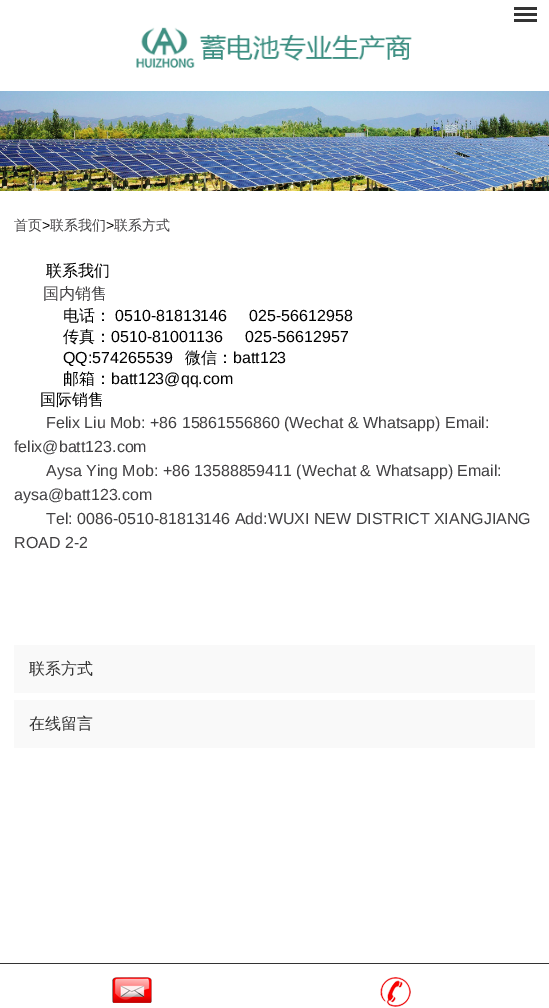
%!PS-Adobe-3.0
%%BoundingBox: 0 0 549 1008
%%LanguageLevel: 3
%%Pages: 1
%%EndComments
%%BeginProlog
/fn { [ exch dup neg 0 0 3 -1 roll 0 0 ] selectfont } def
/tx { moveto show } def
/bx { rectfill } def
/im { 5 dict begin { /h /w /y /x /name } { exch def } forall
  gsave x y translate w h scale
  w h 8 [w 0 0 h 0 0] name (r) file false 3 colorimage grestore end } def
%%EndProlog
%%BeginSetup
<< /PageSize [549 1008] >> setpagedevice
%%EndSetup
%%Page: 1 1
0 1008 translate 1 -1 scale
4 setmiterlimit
1 setgray
0 0 549 1008 bx
0.2 setgray
514 7 23 3 bx
514 13 23 3 bx
514 19 23 3 bx
(image0.raw) 136 27 276 41 im
(image1.raw) 0 91 549 100 im
/WenQuanYiZenHei-Medium 14 fn
0.255 0.251 0.259 setrgbcolor
(首页) 14 230 tx
/LiberationSans-Regular 14 fn
0 setgray
(>) 42 230 tx
/WenQuanYiZenHei-Medium 14 fn
0.255 0.251 0.259 setrgbcolor
(联系我们) 50 230 tx
/LiberationSans-Regular 14 fn
0 setgray
(>) 106 230 tx
/WenQuanYiZenHei-Medium 14 fn
0.255 0.251 0.259 setrgbcolor
(联系方式) 114 230 tx
/WenQuanYiZenHei-Medium 16 fn
0 setgray
(联系我们) 46 276 tx
0.255 0.251 0.259 setrgbcolor
(国内销售) 43 299 tx
0 setgray
(电话：) 63 321 tx
/LiberationSans-Regular 16 fn
(0510-81813146     025-56612958) 115 321 tx
/WenQuanYiZenHei-Medium 16 fn
(传真：) 63 342 tx
/LiberationSans-Regular 16 fn
(0510-81001136     025-56612957) 111 342 tx
(QQ:574265539) 63 363 tx
/WenQuanYiZenHei-Medium 16 fn
(微信：) 185 363 tx
/LiberationSans-Regular 16 fn
(batt123) 233 363 tx
/WenQuanYiZenHei-Medium 16 fn
(邮箱：) 63 384 tx
/LiberationSans-Regular 16 fn
(batt123@qq.com) 111 384 tx
/WenQuanYiZenHei-Medium 16 fn
(国际销售) 40 405 tx
/LiberationSans-Regular 16 fn
0.255 0.251 0.259 setrgbcolor
(Felix Liu Mob: +86 15861556860 \(Wechat & Whatsapp\) Email:) 46 428 tx
(felix@batt123.com) 14 452 tx
(Aysa Ying Mob: +86 13588859411 \(Wechat & Whatsapp\) Email:) 46 476 tx
(aysa@batt123.com) 14 500 tx
(Tel: 0086-0510-81813146 Add:WUXI NEW DISTRICT XIANGJIANG) 46 524 tx
(ROAD 2-2) 14 548 tx
0.976 setgray
14 645 521 48 bx
/WenQuanYiZenHei-Medium 16 fn
0.2 setgray
(联系方式) 29 674 tx
0.976 setgray
14 700 521 48 bx
0.2 setgray
(在线留言) 29 729 tx
0 963 549 1 bx
(image2.raw) 112 977 40 26 im
(image3.raw) 380 977 31 30 im
showpage
%%EOF
